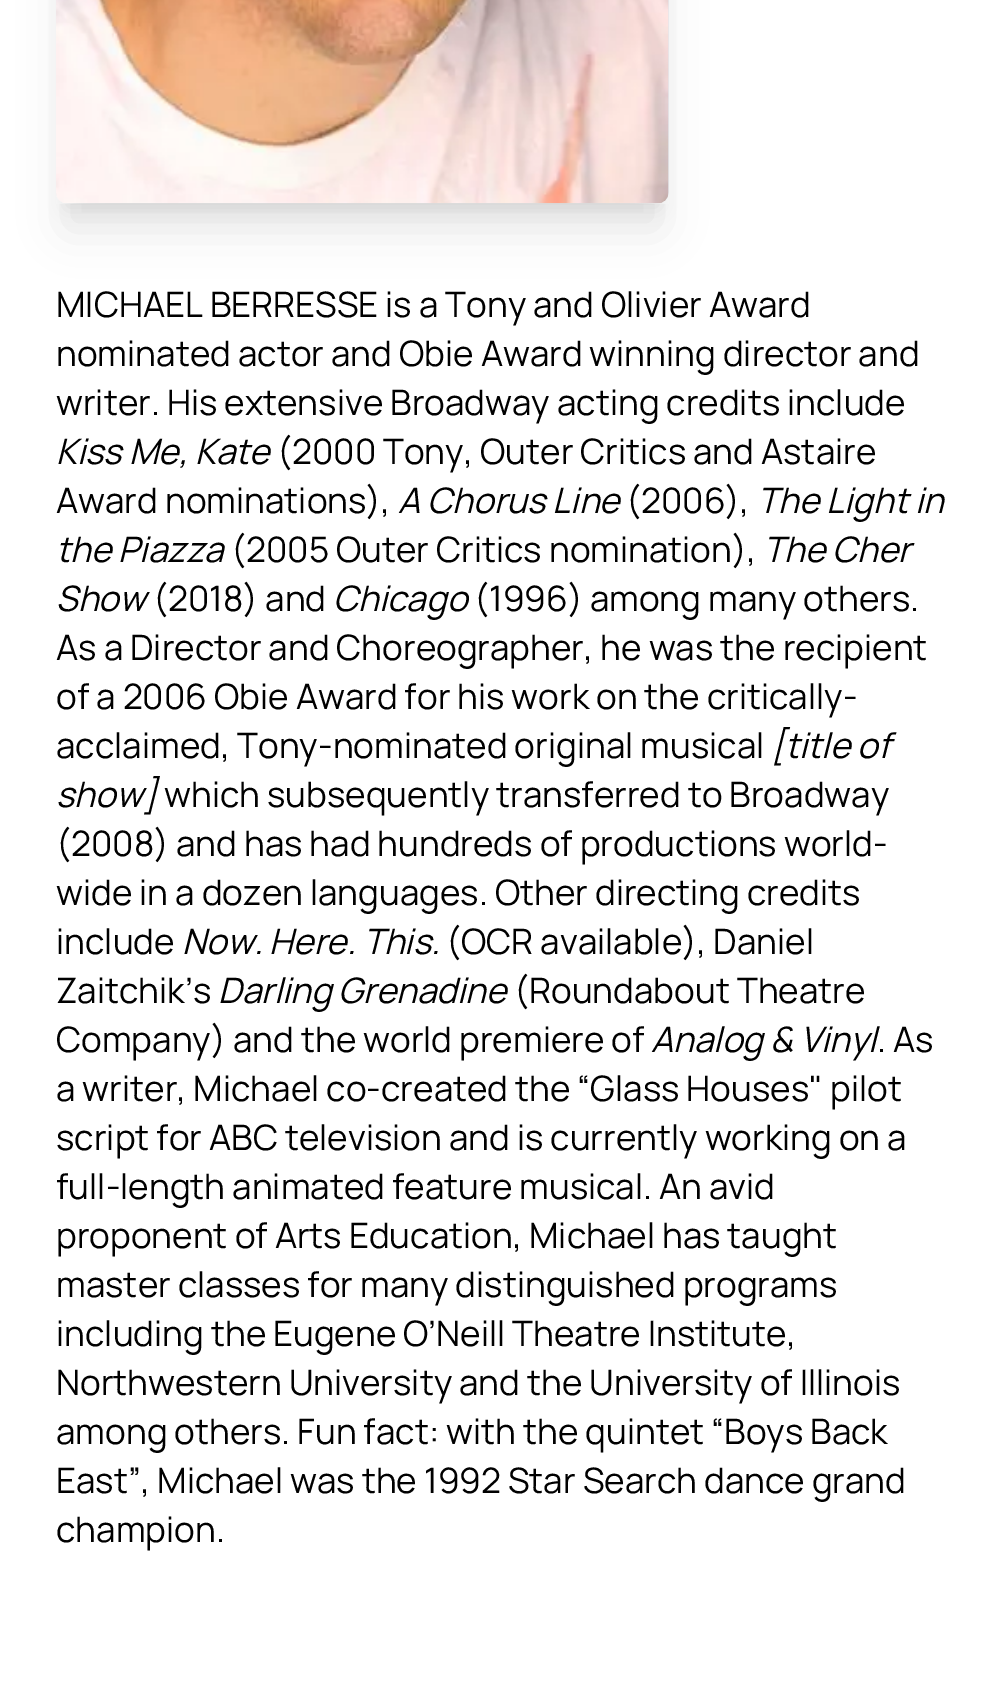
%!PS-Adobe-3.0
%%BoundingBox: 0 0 1007 1696
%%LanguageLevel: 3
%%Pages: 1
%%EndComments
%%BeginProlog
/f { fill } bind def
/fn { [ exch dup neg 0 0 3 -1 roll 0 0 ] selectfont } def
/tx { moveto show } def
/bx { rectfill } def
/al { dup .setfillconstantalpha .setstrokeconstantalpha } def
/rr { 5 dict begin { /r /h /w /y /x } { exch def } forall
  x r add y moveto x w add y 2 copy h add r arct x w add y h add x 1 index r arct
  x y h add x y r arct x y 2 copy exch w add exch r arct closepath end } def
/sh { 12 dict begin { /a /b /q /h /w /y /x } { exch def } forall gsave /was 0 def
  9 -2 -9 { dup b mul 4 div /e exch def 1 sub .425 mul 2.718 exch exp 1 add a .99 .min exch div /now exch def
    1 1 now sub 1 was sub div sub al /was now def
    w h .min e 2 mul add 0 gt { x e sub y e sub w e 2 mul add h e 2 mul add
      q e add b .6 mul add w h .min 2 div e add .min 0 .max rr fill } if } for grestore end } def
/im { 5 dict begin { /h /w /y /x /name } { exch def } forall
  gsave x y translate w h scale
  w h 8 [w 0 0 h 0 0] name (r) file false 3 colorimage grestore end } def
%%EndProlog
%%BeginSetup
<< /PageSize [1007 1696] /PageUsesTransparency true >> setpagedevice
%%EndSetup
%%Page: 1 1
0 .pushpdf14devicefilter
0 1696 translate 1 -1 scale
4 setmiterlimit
1 setgray
0 0 1007 1696 bx
0 setgray
67 -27 591 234 0 9 0.1 sh
65 -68 595 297 2 22 0.1 sh
0.898 0.906 0.922 setrgbcolor
56 -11 613 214 11 rr f
(image0.raw) 56 0 613 204 im
/Manrope-Regular 35 fn
0 setgray
(MICHAEL BERRESSE is a Tony and Olivier Award) 56 317 tx
(nominated actor and Obie Award winning director and) 56 366 tx
(writer. His extensive Broadway acting credits include) 56 415 tx
/Manrope-Italic 35 fn
(Kiss Me, Kate) 56 464 tx
/Manrope-Regular 35 fn
(\(2000 Tony, Outer Critics and Astaire) 277 464 tx
(Award nominations\),) 56 513 tx
/Manrope-Italic 35 fn
(A Chorus Line) 398 513 tx
/Manrope-Regular 35 fn
(\(2006\),) 626 513 tx
/Manrope-Italic 35 fn
(The Light in) 757 513 tx
(the Piazza) 56 562 tx
/Manrope-Regular 35 fn
(\(2005 Outer Critics nomination\),) 231 562 tx
/Manrope-Italic 35 fn
(The Cher) 763 562 tx
(Show) 56 611 tx
/Manrope-Regular 35 fn
(\(2018\) and) 153 611 tx
/Manrope-Italic 35 fn
(Chicago) 333 611 tx
/Manrope-Regular 35 fn
(\(1996\) among many others.) 474 611 tx
(As a Director and Choreographer, he was the recipient) 56 660 tx
(of a 2006 Obie Award for his work on the critically-) 56 709 tx
(acclaimed, Tony-nominated original musical) 56 758 tx
/Manrope-Italic 35 fn
([title of) 771 758 tx
(show]) 56 807 tx
/Manrope-Regular 35 fn
(which subsequently transferred to Broadway) 164 807 tx
(\(2008\) and has had hundreds of productions world-) 56 856 tx
(wide in a dozen languages. Other directing credits) 56 905 tx
(include) 56 954 tx
/Manrope-Italic 35 fn
(Now. Here. This.) 182 954 tx
/Manrope-Regular 35 fn
(\(OCR available\), Daniel) 446 954 tx
(Zaitchik’s) 56 1003 tx
/Manrope-Italic 35 fn
(Darling Grenadine) 218 1003 tx
/Manrope-Regular 35 fn
(\(Roundabout Theatre) 514 1003 tx
(Company\) and the world premiere of) 56 1052 tx
/Manrope-Italic 35 fn
(Analog & Vinyl) 651 1052 tx
/Manrope-Regular 35 fn
(. As) 877 1052 tx
(a writer, Michael co-created the “Glass Houses" pilot) 56 1101 tx
(script for ABC television and is currently working on a) 56 1150 tx
(full-length animated feature musical. An avid) 56 1199 tx
(proponent of Arts Education, Michael has taught) 56 1248 tx
(master classes for many distinguished programs) 56 1297 tx
(including the Eugene O’Neill Theatre Institute,) 56 1346 tx
(Northwestern University and the University of Illinois) 56 1395 tx
(among others. Fun fact: with the quintet “Boys Back) 56 1444 tx
(East”, Michael was the 1992 Star Search dance grand) 56 1493 tx
(champion.) 56 1542 tx
.poppdf14devicefilter showpage
%%EOF
